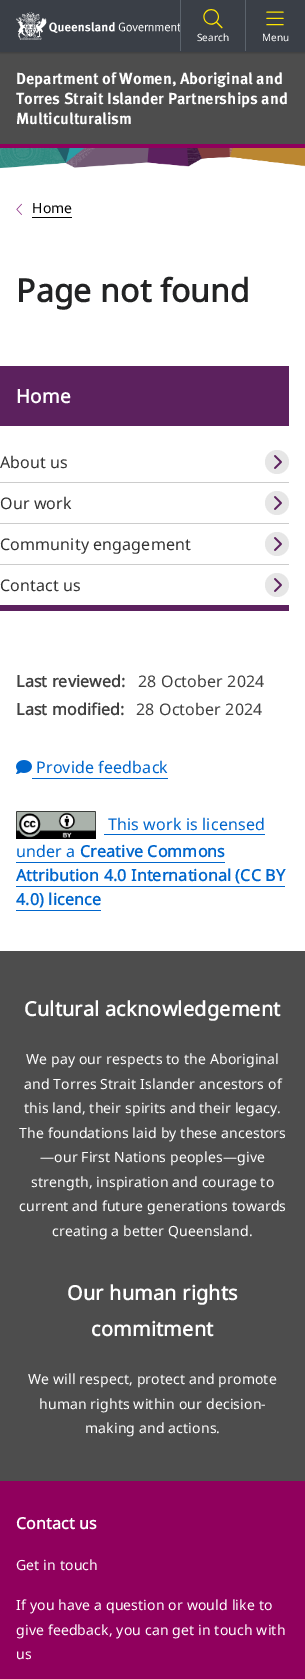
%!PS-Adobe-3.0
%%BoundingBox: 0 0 305 1679
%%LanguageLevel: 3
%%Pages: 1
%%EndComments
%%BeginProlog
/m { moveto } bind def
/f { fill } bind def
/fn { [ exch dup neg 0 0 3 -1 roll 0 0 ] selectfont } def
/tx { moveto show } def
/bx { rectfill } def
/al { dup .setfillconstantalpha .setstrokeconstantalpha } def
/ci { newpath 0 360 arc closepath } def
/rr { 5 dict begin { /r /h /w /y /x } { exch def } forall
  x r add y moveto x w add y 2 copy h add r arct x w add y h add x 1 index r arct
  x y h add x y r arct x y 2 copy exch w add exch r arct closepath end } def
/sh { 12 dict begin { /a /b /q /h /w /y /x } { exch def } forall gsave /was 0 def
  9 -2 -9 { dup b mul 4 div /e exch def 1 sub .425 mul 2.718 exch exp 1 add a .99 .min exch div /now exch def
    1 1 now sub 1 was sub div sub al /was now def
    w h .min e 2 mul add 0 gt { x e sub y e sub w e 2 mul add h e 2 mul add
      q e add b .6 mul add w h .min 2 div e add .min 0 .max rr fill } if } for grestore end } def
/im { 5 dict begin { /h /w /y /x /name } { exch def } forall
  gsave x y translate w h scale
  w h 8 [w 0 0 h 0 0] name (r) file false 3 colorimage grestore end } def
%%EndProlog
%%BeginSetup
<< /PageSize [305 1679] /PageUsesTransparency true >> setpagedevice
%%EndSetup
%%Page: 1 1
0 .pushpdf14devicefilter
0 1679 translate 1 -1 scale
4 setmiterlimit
0.302 setgray
0 0 305 1679 bx
0 setgray
0 1 305 52 0 1 0.2 sh
0.227 0.247 0.278 setrgbcolor
0 0 305 52 bx
(image0.raw) 16 12 164 28 im
0.357 0.388 0.424 setrgbcolor
180 0 1 51 bx
(image1.raw) 203 9 20 20 im
/NotoSans-Regular 10 fn
1 setgray
(Search) 197 41 tx
0.357 0.388 0.424 setrgbcolor
245 0 1 51 bx
(image2.raw) 266 11 18 15 im
1 setgray
(Menu) 262 41 tx
/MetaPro-Bold 16 fn
(Department of Women, Aboriginal and) 16 84 tx
(Torres Strait Islander Partnerships and) 16 104 tx
(Multiculturalism) 16 124 tx
0.565 0 0.365 setrgbcolor
0 144 305 4 bx
1 setgray
0 157 305 794 bx
(image3.raw) 0 148 305 21 im
(image4.raw) 16 203 6 12 im
/NotoSans-Regular 14 fn
0 setgray
32 213 m 0.15 0 (Home) ashow
32 217 40 1 bx
/NotoSans-Bold 32 fn
0.133 0.137 0.141 setrgbcolor
16 302 m 0.15 0 (Page not found) ashow
0.361 0.129 0.369 setrgbcolor
0 366 289 60 bx
/NotoSans-Bold 19 fn
1 setgray
16 403 m 0.15 0 (Home) ashow
0.8 setgray
0 482 289 1 bx
/NotoSans-Regular 16 fn
0.2 setgray
0 468 m 0.15 0 (About us) ashow
0.902 setgray
277 462 12 ci f
(image5.raw) 274 455 8 14 im
0.8 setgray
0 523 289 1 bx
0.2 setgray
0 509 m 0.15 0 (Our work) ashow
0.902 setgray
277 503 12 ci f
(image5.raw) 274 496 8 14 im
0.8 setgray
0 564 289 1 bx
0.2 setgray
0 550 m 0.15 0 (Community engagement) ashow
0.902 setgray
277 544 12 ci f
(image5.raw) 274 537 8 14 im
0.361 0.129 0.369 setrgbcolor
0 605 289 6 bx
0.2 setgray
0 591 m 0.15 0 (Contact us) ashow
0.902 setgray
277 585 12 ci f
(image5.raw) 274 578 8 14 im
/NotoSans-Bold 16 fn
0.255 setgray
16 687 m 0.15 0 (Last reviewed:) ashow
/NotoSans-Regular 16 fn
138 687 m 0.15 0 (28 October 2024) ashow
/NotoSans-Bold 16 fn
16 715 m 0.15 0 (Last modified:) ashow
/NotoSans-Regular 16 fn
136 715 m 0.15 0 (28 October 2024) ashow
(image6.raw) 16 760 16 14 im
0 0.4 0.8 setrgbcolor
36 773 m 0.15 0 (Provide feedback) ashow
32 778 136 1 bx
(image7.raw) 16 811 80 28 im
108 830 m 0.15 0 (This work is licensed) ashow
104 834 161 1 bx
16 857 m 0.15 0 (under a) ashow
16 862 209 1 bx
/NotoSans-Bold 16 fn
80 857 m 0.15 0 (Creative Commons) ashow
16 881 m 0.15 0 (Attribution 4.0 International \(CC BY) ashow
16 886 269 1 bx
16 905 m 0.15 0 (4.0\) licence) ashow
16 910 85 1 bx
/NotoSans-Bold 20 fn
1 setgray
24 1016 m 0.15 0 (Cultural acknowledgement) ashow
/NotoSans-Regular 14 fn
26 1064 m 0.15 0 (We pay our respects to the Aboriginal) ashow
24 1089 m 0.15 0 (and Torres Strait Islander ancestors of) ashow
24 1113 m 0.15 0 (this land, their spirits and their legacy.) ashow
19 1138 m 0.15 0 (The foundations laid by these ancestors) ashow
40 1162 m 0.15 0 (—our First Nations peoples—give) ashow
31 1187 m 0.15 0 (strength, inspiration and courage to) ashow
19 1211 m 0.15 0 (current and future generations towards) ashow
52 1236 m 0.15 0 (creating a better Queensland.) ashow
/NotoSans-Bold 20 fn
67 1300 m 0.15 0 (Our human rights) ashow
91 1336 m 0.15 0 (commitment) ashow
/NotoSans-Regular 14 fn
28 1384 m 0.15 0 (We will respect, protect and promote) ashow
39 1409 m 0.15 0 (human rights within our decision-) ashow
85 1433 m 0.15 0 (making and actions.) ashow
0.565 0 0.365 setrgbcolor
0 1481 305 198 bx
/NotoSans-Bold 16 fn
1 setgray
16 1529 m 0.15 0 (Contact us) ashow
/NotoSans-Regular 14 fn
16 1570 m 0.15 0 (Get in touch) ashow
16 1610 m 0.15 0 (If you have a question or would like to) ashow
16 1635 m 0.15 0 (give feedback, you can get in touch with) ashow
16 1659 m 0.15 0 (us) ashow
.poppdf14devicefilter showpage
%%EOF
